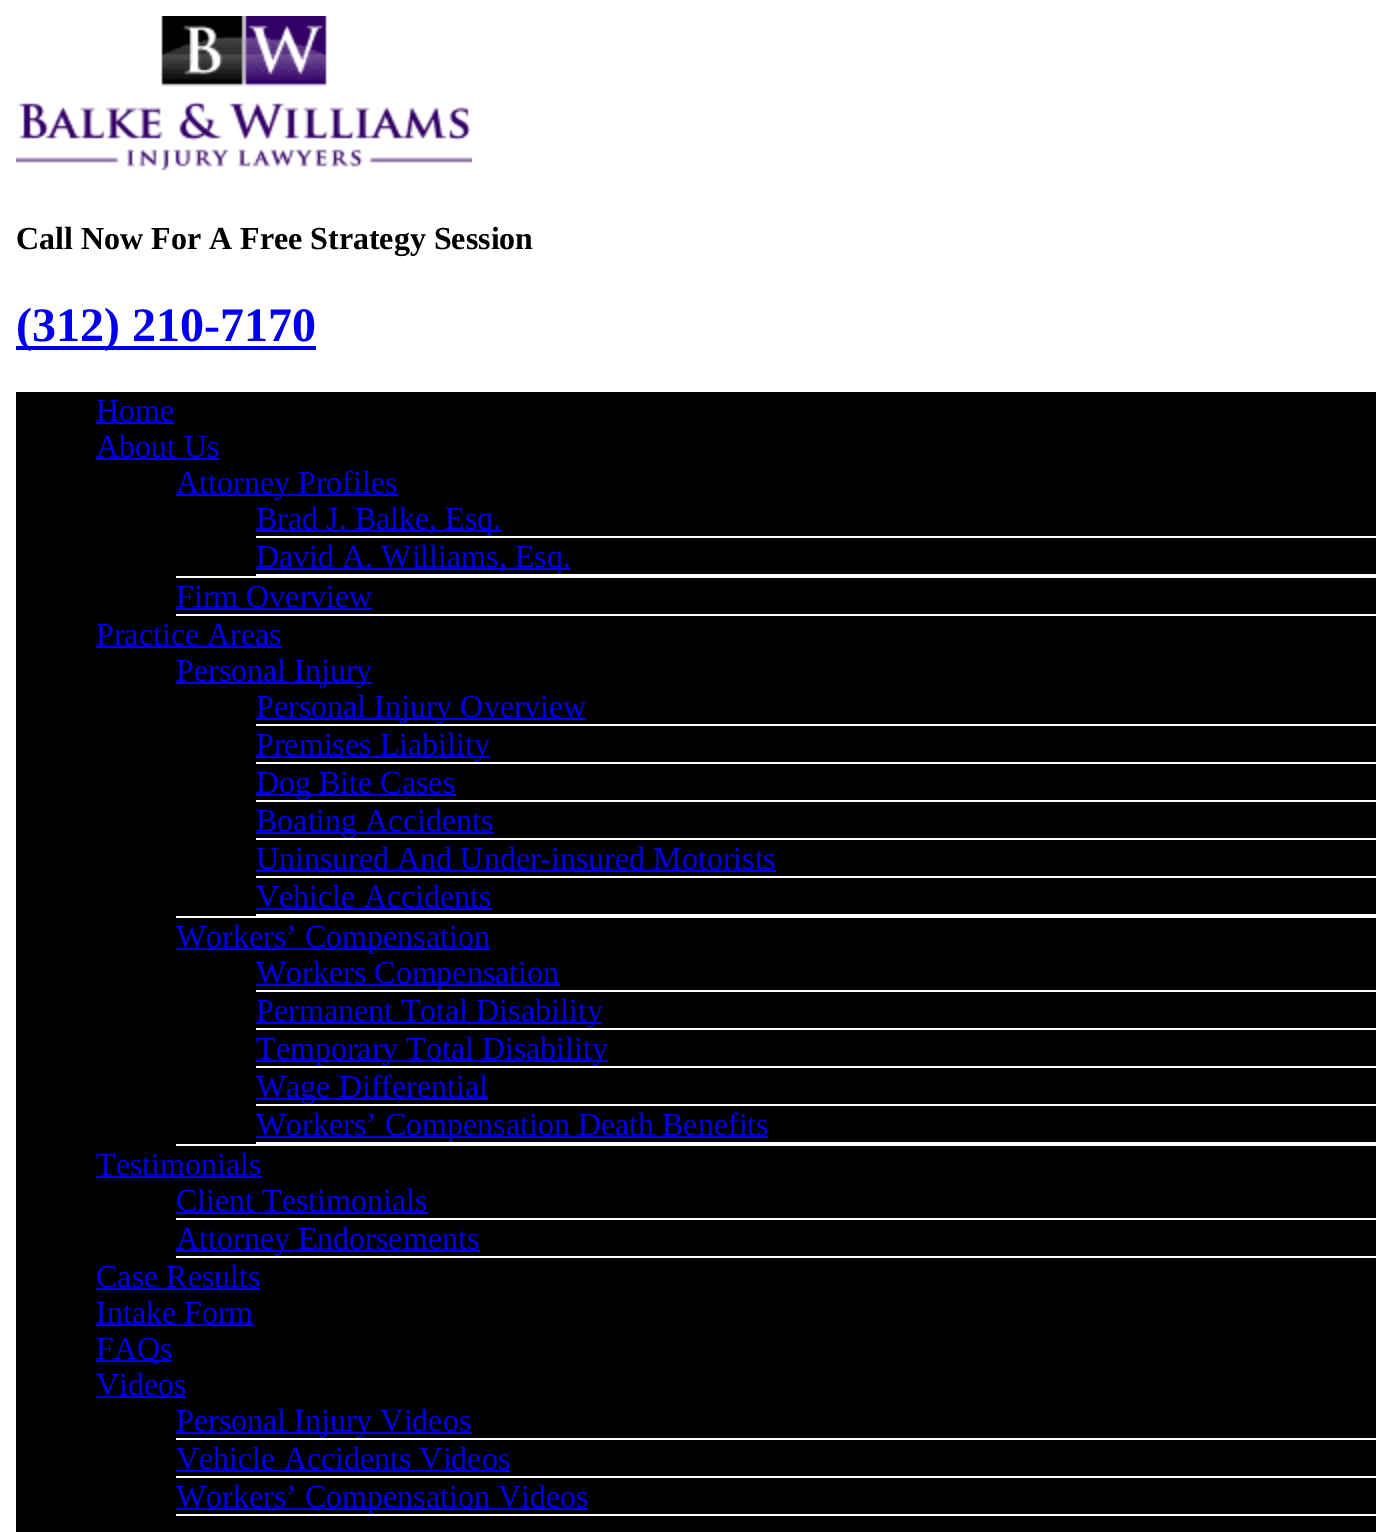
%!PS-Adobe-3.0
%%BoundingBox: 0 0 1391 1532
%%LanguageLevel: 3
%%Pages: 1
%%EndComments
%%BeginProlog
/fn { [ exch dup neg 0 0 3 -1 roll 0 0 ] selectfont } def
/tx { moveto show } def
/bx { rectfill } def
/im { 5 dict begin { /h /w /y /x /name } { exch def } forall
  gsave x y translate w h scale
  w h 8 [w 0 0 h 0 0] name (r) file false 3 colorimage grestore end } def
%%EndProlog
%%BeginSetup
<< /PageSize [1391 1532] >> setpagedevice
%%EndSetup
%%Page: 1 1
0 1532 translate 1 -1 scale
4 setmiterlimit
1 setgray
0 0 1391 1532 bx
(image0.raw) 16 16 456 154 im
/LiberationSerif-Bold 32 fn
0 setgray
(Call Now For A Free Strategy Session) 16 249 tx
0 0 0.933 setrgbcolor
16 346 300 4 bx
/LiberationSerif-Bold 48 fn
(\(312\) 210-7170) 16 341 tx
0 setgray
16 392 1360 1140 bx
/LiberationSerif-Regular 32 fn
0 0 0.933 setrgbcolor
(Home) 96 421 tx
96 422 78 2 bx
(About Us) 96 457 tx
96 458 124 2 bx
1 setgray
176 576 1200 2 bx
0 0 0.933 setrgbcolor
176 494 222 2 bx
(Attorney Profiles) 176 493 tx
1 setgray
256 536 1120 2 bx
0 0 0.933 setrgbcolor
256 530 246 2 bx
(Brad J. Balke, Esq.) 256 529 tx
1 setgray
256 574 1120 2 bx
0 0 0.933 setrgbcolor
256 568 314 2 bx
(David A. Williams, Esq.) 256 567 tx
1 setgray
176 614 1200 2 bx
0 0 0.933 setrgbcolor
(Firm Overview) 176 607 tx
176 608 196 2 bx
(Practice Areas) 96 645 tx
96 646 186 2 bx
1 setgray
176 916 1200 2 bx
0 0 0.933 setrgbcolor
176 682 196 2 bx
(Personal Injury) 176 681 tx
1 setgray
256 724 1120 2 bx
0 0 0.933 setrgbcolor
256 718 330 2 bx
(Personal Injury Overview) 256 717 tx
1 setgray
256 762 1120 2 bx
0 0 0.933 setrgbcolor
256 756 234 2 bx
(Premises Liability) 256 755 tx
1 setgray
256 800 1120 2 bx
0 0 0.933 setrgbcolor
256 794 200 2 bx
(Dog Bite Cases) 256 793 tx
1 setgray
256 838 1120 2 bx
0 0 0.933 setrgbcolor
256 832 238 2 bx
(Boating Accidents) 256 831 tx
1 setgray
256 876 1120 2 bx
0 0 0.933 setrgbcolor
(Uninsured And Under-insured Motorists) 256 869 tx
256 870 520 2 bx
1 setgray
256 914 1120 2 bx
0 0 0.933 setrgbcolor
(Vehicle Accidents) 256 907 tx
256 908 236 2 bx
1 setgray
176 1144 1200 2 bx
0 0 0.933 setrgbcolor
176 948 314 2 bx
(Workers’ Compensation) 176 947 tx
1 setgray
256 990 1120 2 bx
0 0 0.933 setrgbcolor
256 984 304 2 bx
(Workers Compensation) 256 983 tx
1 setgray
256 1028 1120 2 bx
0 0 0.933 setrgbcolor
256 1022 346 2 bx
(Permanent Total Disability) 256 1021 tx
1 setgray
256 1066 1120 2 bx
0 0 0.933 setrgbcolor
256 1060 352 2 bx
(Temporary Total Disability) 256 1059 tx
1 setgray
256 1104 1120 2 bx
0 0 0.933 setrgbcolor
256 1098 232 2 bx
(Wage Differential) 256 1097 tx
1 setgray
256 1142 1120 2 bx
0 0 0.933 setrgbcolor
256 1136 512 2 bx
(Workers’ Compensation Death Benefits) 256 1135 tx
(Testimonials) 96 1175 tx
96 1176 166 2 bx
1 setgray
176 1218 1200 2 bx
0 0 0.933 setrgbcolor
(Client Testimonials) 176 1211 tx
176 1212 252 2 bx
1 setgray
176 1256 1200 2 bx
0 0 0.933 setrgbcolor
176 1250 304 2 bx
(Attorney Endorsements) 176 1249 tx
(Case Results) 96 1287 tx
96 1288 164 2 bx
(Intake Form) 96 1323 tx
96 1324 158 2 bx
96 1360 76 2 bx
(FAQs) 96 1359 tx
(Videos) 96 1395 tx
96 1396 90 2 bx
1 setgray
176 1438 1200 2 bx
0 0 0.933 setrgbcolor
176 1432 296 2 bx
(Personal Injury Videos) 176 1431 tx
1 setgray
176 1476 1200 2 bx
0 0 0.933 setrgbcolor
(Vehicle Accidents Videos) 176 1469 tx
176 1470 334 2 bx
1 setgray
176 1514 1200 2 bx
0 0 0.933 setrgbcolor
176 1508 412 2 bx
(Workers’ Compensation Videos) 176 1507 tx
showpage
%%EOF
